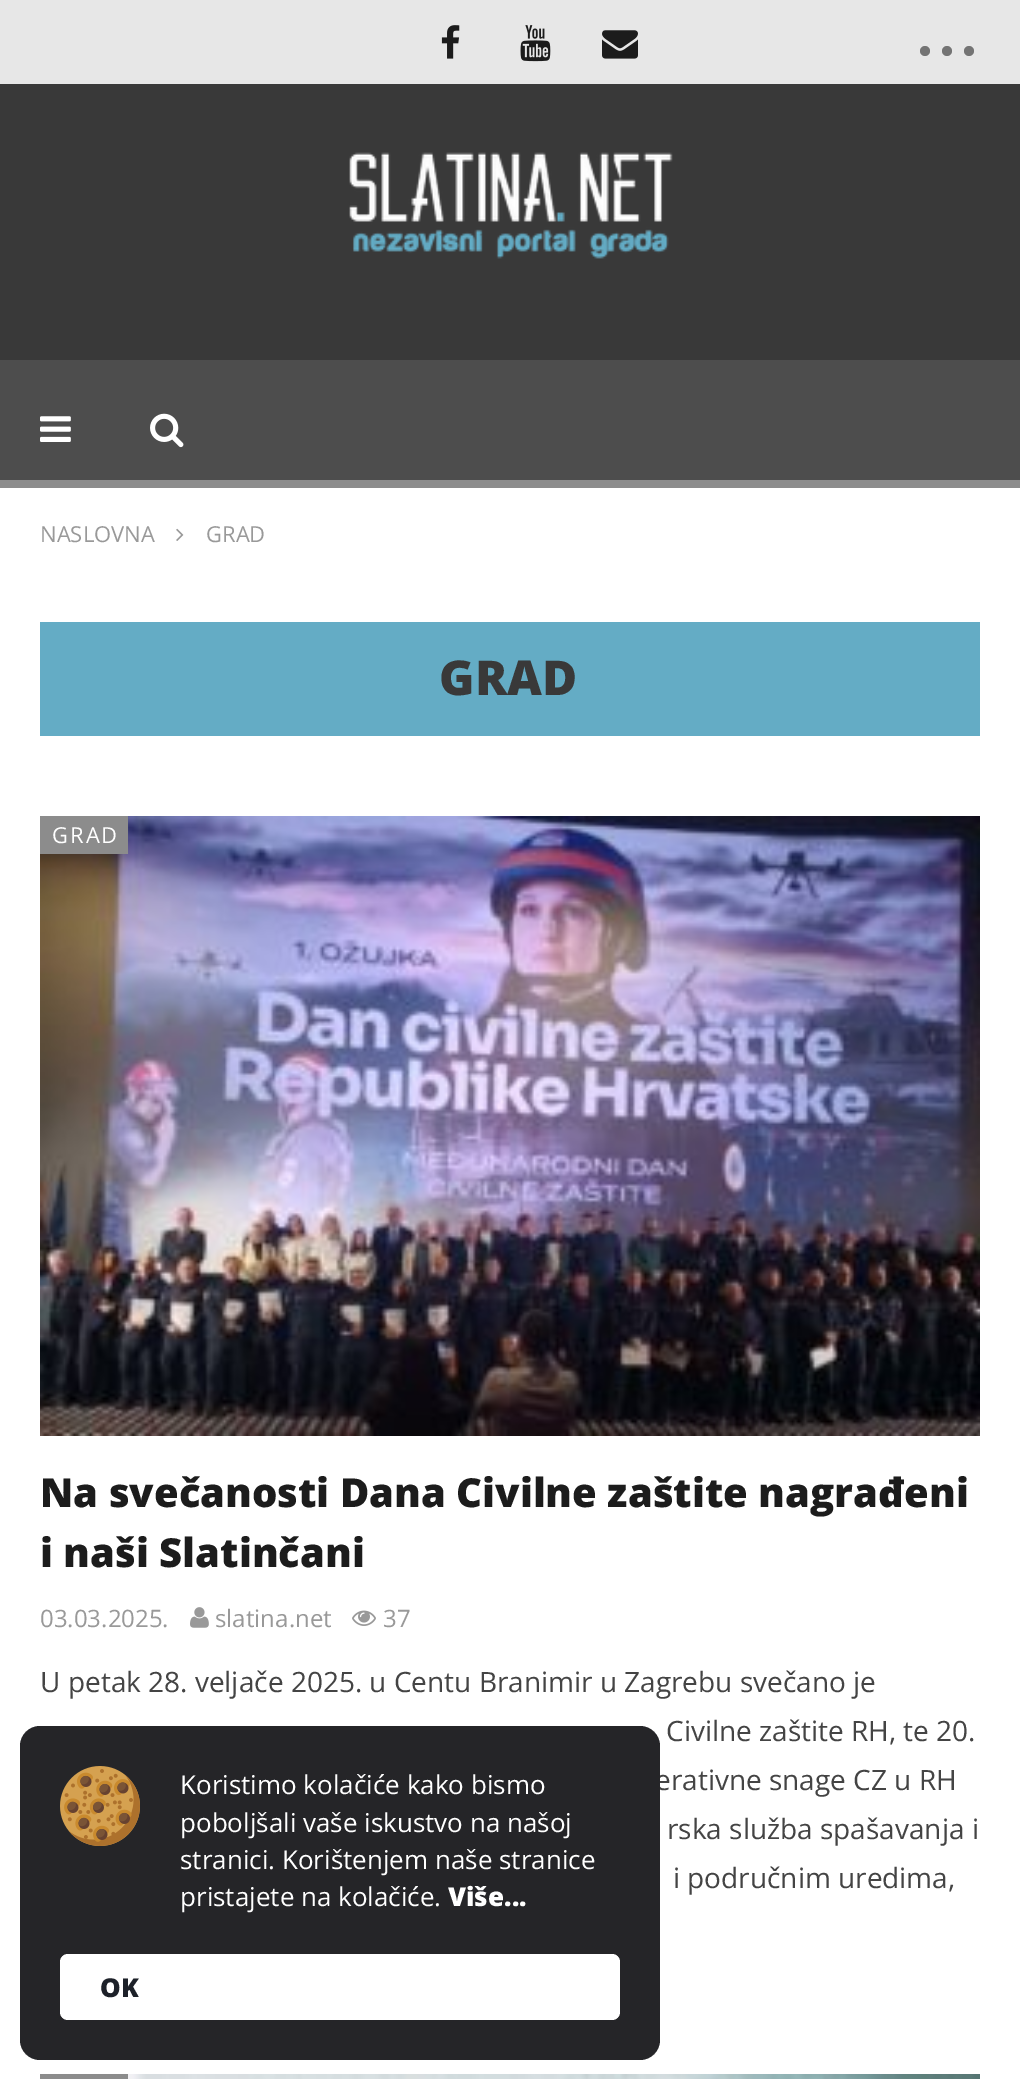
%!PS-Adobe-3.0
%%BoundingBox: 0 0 1020 2079
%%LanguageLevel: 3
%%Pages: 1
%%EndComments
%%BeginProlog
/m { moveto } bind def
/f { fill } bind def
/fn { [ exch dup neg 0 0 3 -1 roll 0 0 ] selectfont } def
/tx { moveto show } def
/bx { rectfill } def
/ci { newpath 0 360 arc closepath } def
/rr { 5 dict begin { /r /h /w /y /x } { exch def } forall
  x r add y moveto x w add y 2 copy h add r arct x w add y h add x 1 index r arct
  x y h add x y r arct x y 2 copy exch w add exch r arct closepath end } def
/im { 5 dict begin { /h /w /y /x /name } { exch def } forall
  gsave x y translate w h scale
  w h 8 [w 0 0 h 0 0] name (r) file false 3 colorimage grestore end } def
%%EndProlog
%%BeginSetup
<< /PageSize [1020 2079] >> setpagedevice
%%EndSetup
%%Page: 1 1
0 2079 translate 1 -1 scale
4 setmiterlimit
1 setgray
0 0 1020 2079 bx
0.906 setgray
0 0 1020 84 bx
(image0.raw) 441 25 19 34 im
(image1.raw) 520 25 31 37 im
(image2.raw) 602 30 36 29 im
0.455 setgray
925 51 5 ci f
947 51 5 ci f
969 51 5 ci f
0.224 setgray
0 84 1020 276 bx
(image3.raw) 349 152 324 107 im
0.549 setgray
0 480 1020 8 bx
0.302 setgray
0 360 1020 120 bx
(image4.raw) 40 416 31 26 im
(image5.raw) 150 413 34 35 im
/OpenSans-Regular 22 fn
0.6 setgray
(NASLOVNA) 40 542 tx
(image6.raw) 176 528 8 13 im
(GRAD) 206 542 tx
0.392 0.675 0.773 setrgbcolor
40 622 940 114 bx
/OpenSans-ExtraBold 48 fn
0.224 setgray
(GRAD) 439 695 tx
(image7.raw) 40 816 940 620 im
0.549 setgray
40 816 88 38 bx
/OpenSans-Regular 22 fn
1 setgray
52 843 m 2 0 (GRAD) ashow
/OpenSans-ExtraBold 40 fn
0.11 setgray
(Na svečanosti Dana Civilne zaštite nagrađeni) 40 1507 tx
(i naši Slatinčani) 40 1567 tx
/OpenSans-Regular 24 fn
0.6 setgray
(03.03.2025.) 40 1627 tx
(image8.raw) 190 1607 19 21 im
(slatina.net) 215 1627 tx
(image9.raw) 352 1610 24 16 im
(37) 383 1627 tx
/OpenSans-Regular 28 fn
0.267 setgray
(U petak 28. veljače 2025. u Centu Branimir u Zagrebu svečano je) 40 1692 tx
(Civilne zaštite RH, te 20.) 666 1741 tx
(erativne snage CZ u RH) 655 1790 tx
(rska služba spašavanja i) 667 1839 tx
(i područnim uredima,) 673 1888 tx
0.549 setgray
40 2074 88 5 bx
(image10.raw) 128 2074 852 5 im
0.145 0.145 0.157 setrgbcolor
20 1726 640 334 20 rr f
(image11.raw) 60 1766 80 80 im
/OpenSans-Regular 26 fn
1 setgray
(Koristimo kolačiće kako bismo) 180 1794 tx
(poboljšali vaše iskustvo na našoj) 180 1832 tx
(stranici. Korištenjem naše stranice) 180 1869 tx
(pristajete na kolačiće.) 180 1906 tx
/OpenSans-ExtraBold 26 fn
(Više...) 448 1906 tx
60 1954 560 66 8 rr f
0.114 0.129 0.161 setrgbcolor
(OK) 100 1997 tx
showpage
%%EOF
